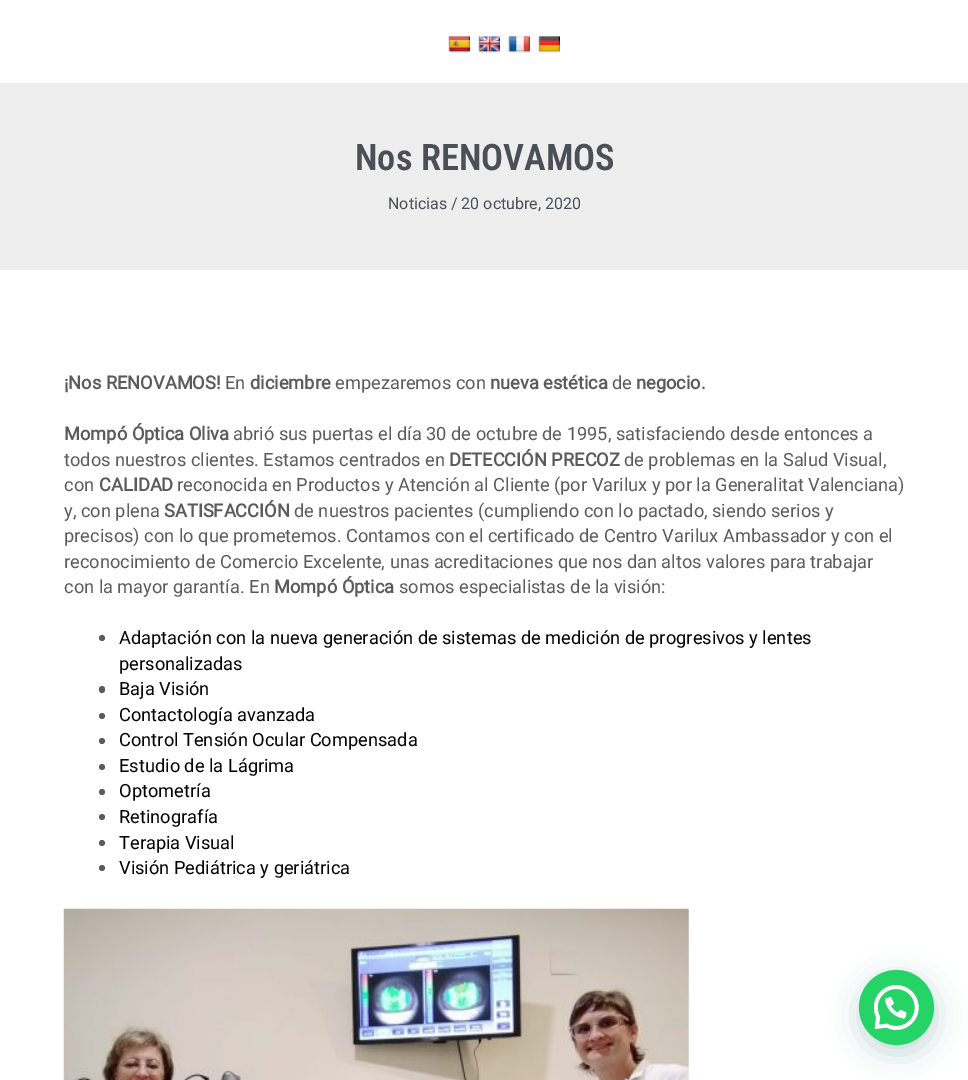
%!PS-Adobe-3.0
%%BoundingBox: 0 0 968 1080
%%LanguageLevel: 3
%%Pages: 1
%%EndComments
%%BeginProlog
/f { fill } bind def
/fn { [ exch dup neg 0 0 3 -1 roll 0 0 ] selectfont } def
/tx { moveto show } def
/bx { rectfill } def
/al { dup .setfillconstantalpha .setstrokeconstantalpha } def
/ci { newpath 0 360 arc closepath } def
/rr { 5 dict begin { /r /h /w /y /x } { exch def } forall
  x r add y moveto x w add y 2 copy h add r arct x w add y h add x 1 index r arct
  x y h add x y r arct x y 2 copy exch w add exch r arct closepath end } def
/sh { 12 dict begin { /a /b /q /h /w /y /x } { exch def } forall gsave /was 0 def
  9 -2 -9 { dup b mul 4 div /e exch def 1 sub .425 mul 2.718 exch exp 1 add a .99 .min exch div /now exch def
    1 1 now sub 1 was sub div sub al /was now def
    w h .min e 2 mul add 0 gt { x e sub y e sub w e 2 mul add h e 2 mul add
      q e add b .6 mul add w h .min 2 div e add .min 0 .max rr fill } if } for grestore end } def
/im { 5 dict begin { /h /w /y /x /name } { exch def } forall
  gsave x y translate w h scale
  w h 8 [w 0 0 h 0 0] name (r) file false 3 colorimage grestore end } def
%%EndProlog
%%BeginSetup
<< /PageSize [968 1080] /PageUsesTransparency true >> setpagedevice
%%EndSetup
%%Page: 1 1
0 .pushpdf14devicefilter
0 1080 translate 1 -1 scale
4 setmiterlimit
1 setgray
0 0 968 1080 bx
(image0.raw) 448 36 22 17 im
(image1.raw) 478 36 22 17 im
(image2.raw) 508 36 22 17 im
(image3.raw) 538 36 22 17 im
0.933 setgray
0 83 968 187 bx
/RobotoCondensed-SemiBold 36.5 fn
0.294 0.31 0.345 setrgbcolor
(Nos RENOVAMOS) 355 170 tx
/Roboto-Regular 16 fn
(Noticias / 20 octubre, 2020) 388 209 tx
/Roboto-Bold 18.25 fn
0.357 setgray
(¡Nos RENOVAMOS!) 64 389 tx
/Roboto-Regular 18.25 fn
(En) 225 389 tx
/Roboto-Bold 18.25 fn
(diciembre) 250 389 tx
/Roboto-Regular 18.25 fn
(empezaremos con) 335 389 tx
/Roboto-Bold 18.25 fn
(nueva estética) 490 389 tx
/Roboto-Regular 18.25 fn
(de) 612 389 tx
/Roboto-Bold 18.25 fn
(negocio.) 636 389 tx
(Mompó Óptica Oliva) 64 440 tx
/Roboto-Regular 18.25 fn
(abrió sus puertas el día 30 de octubre de 1995, satisfaciendo desde entonces a) 233 440 tx
(todos nuestros clientes. Estamos centrados en) 64 466 tx
/Roboto-Bold 18.25 fn
(DETECCIÓN PRECOZ) 449 466 tx
/Roboto-Regular 18.25 fn
(de problemas en la Salud Visual,) 624 466 tx
(con) 64 491 tx
/Roboto-Bold 18.25 fn
(CALIDAD) 99 491 tx
/Roboto-Regular 18.25 fn
(reconocida en Productos y Atención al Cliente \(por Varilux y por la Generalitat Valenciana\)) 177 491 tx
(y, con plena) 64 517 tx
/Roboto-Bold 18.25 fn
(SATISFACCIÓN) 164 517 tx
/Roboto-Regular 18.25 fn
(de nuestros pacientes \(cumpliendo con lo pactado, siendo serios y) 294 517 tx
(precisos\) con lo que prometemos. Contamos con el certificado de Centro Varilux Ambassador y con el) 64 542 tx
(reconocimiento de Comercio Excelente, unas acreditaciones que nos dan altos valores para trabajar) 64 568 tx
(con la mayor garantía. En) 64 593 tx
/Roboto-Bold 18.25 fn
(Mompó Óptica) 274 593 tx
/Roboto-Regular 18.25 fn
(somos especialistas de la visión:) 399 593 tx
102 638 3 ci f
0 setgray
(Adaptación con la nueva generación de sistemas de medición de progresivos y lentes) 119 644 tx
(personalizadas) 119 670 tx
0.357 setgray
99 686 6 7 3 rr f
0 setgray
(Baja Visión) 119 695 tx
0.357 setgray
102 716 3 ci f
0 setgray
(Contactología avanzada) 119 721 tx
0.357 setgray
102 741 3 ci f
0 setgray
(Control Tensión Ocular Compensada) 119 746 tx
0.357 setgray
102 767 3 ci f
0 setgray
(Estudio de la Lágrima) 119 772 tx
0.357 setgray
102 792 3 ci f
0 setgray
(Optometría) 119 797 tx
0.357 setgray
102 817 3 ci f
0 setgray
(Retinografía) 119 823 tx
0.357 setgray
102 843 3 ci f
0 setgray
(Terapia Visual) 119 849 tx
0.357 setgray
102 868 3 ci f
0 setgray
(Visión Pediátrica y geriátrica) 119 874 tx
(image4.raw) 63 908 626 172 im
0.027 0.369 0.329 setrgbcolor
860 978 75 75 37.5 15 0.24 sh
0.145 0.827 0.4 setrgbcolor
896.5 1007.5 37.5 ci f
(image5.raw) 874 985 45 45 im
.poppdf14devicefilter showpage
%%EOF
